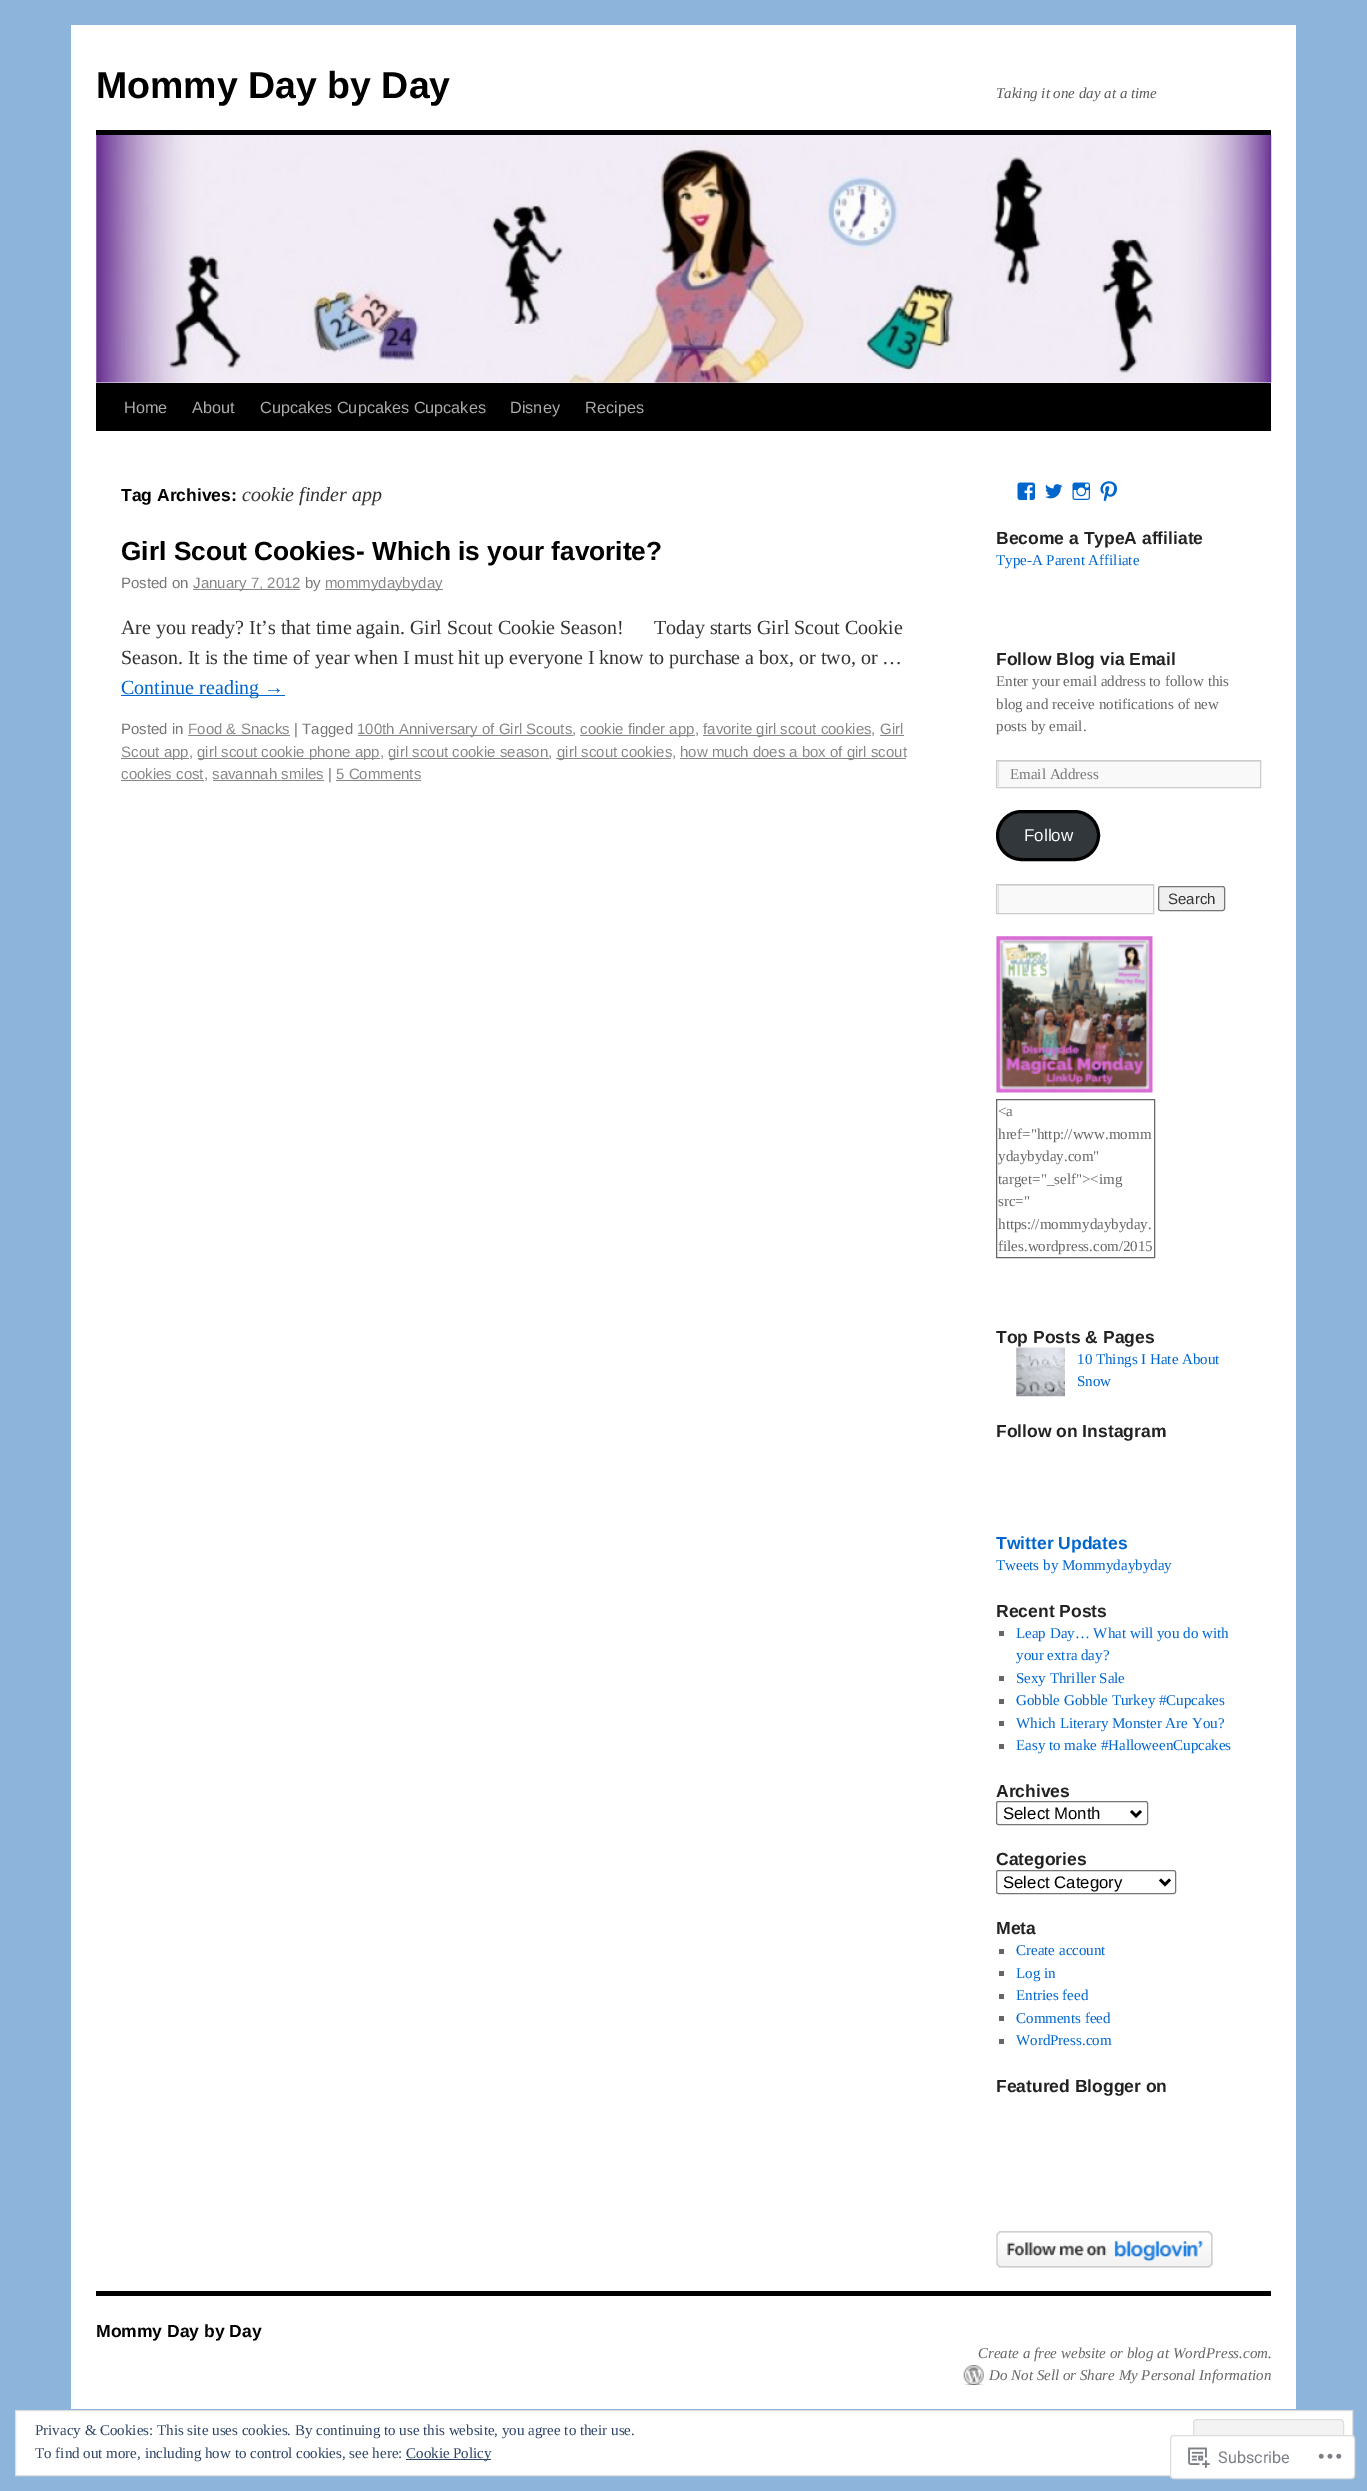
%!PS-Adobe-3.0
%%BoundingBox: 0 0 1367 2491
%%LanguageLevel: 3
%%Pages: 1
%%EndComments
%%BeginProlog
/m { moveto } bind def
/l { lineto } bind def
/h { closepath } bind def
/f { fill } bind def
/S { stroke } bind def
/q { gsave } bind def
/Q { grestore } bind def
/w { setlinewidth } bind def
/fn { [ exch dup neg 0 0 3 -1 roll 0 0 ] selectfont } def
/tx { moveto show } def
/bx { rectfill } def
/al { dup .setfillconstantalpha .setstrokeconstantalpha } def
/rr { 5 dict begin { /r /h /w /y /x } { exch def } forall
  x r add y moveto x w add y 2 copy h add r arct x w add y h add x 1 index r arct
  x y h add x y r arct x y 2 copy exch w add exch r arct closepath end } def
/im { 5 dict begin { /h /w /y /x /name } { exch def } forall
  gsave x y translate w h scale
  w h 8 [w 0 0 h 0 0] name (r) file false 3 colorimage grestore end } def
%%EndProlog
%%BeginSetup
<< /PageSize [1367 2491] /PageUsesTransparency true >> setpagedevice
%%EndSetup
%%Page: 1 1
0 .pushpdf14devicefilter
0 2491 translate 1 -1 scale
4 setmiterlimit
0.553 0.71 0.863 setrgbcolor
0 0 1367 2491 bx
1 setgray
71 25 1225 2384 bx
/LiberationSans-Bold 37.5 fn
0 setgray
(Mommy Day by Day) 96 98 tx
/LiberationSerif-Italic 15 fn
0.349 setgray
(Taking it one day at a time) 996 98 tx
0 setgray
96 130 1175 5 bx
96 383 1175 48 bx
(image0.raw) 96 135 1176 248 im
/LiberationSans-Regular 16.25 fn
0.667 setgray
(Home) 124 413 tx
(About) 192 413 tx
(Cupcakes Cupcakes Cupcakes) 260 413 tx
(Disney) 510 413 tx
(Recipes) 585 413 tx
/LiberationSans-Bold 17.5 fn
0 setgray
(Tag Archives:) 121 501 tx
/LiberationSerif-Italic 20 fn
0.2 setgray
(cookie finder app) 242 501 tx
/LiberationSans-Bold 26.25 fn
0 setgray
(Girl Scout Cookies- Which is your favorite?) 121 560 tx
/LiberationSans-Regular 15 fn
0.467 setgray
(Posted on) 121 588 tx
0.533 setgray
193 589 107 1 bx
(January 7, 2012) 193 588 tx
0.467 setgray
(by) 305 588 tx
0.533 setgray
325 589 118 1 bx
(mommydaybyday) 325 588 tx
/LiberationSerif-Regular 20 fn
0.2 setgray
(Are you ready? It’s that time again. Girl Scout Cookie Season!      Today starts Girl Scout Cookie) 121 634 tx
(Season. It is the time of year when I must hit up everyone I know to purchase a box, or two, or …) 121 664 tx
0 0.4 0.8 setrgbcolor
121 695 164 1 bx
(Continue reading →) 121 694 tx
/LiberationSans-Regular 15 fn
0.467 setgray
(Posted in) 121 734 tx
0.533 setgray
(Food & Snacks) 188 734 tx
188 735 102 1 bx
0.467 setgray
(| Tagged) 294 734 tx
0.533 setgray
358 735 215 1 bx
(100th Anniversary of Girl Scouts) 357 734 tx
0.467 setgray
(,) 572 734 tx
0.533 setgray
580 735 115 1 bx
(cookie finder app) 580 734 tx
0.467 setgray
(,) 695 734 tx
0.533 setgray
703 735 168 1 bx
(favorite girl scout cookies) 703 734 tx
0.467 setgray
(,) 871 734 tx
0.533 setgray
880 735 24 1 bx
(Girl) 880 734 tx
121 758 68 1 bx
(Scout app) 121 757 tx
0.467 setgray
(,) 189 757 tx
0.533 setgray
198 758 182 1 bx
(girl scout cookie phone app) 197 757 tx
0.467 setgray
(,) 380 757 tx
0.533 setgray
389 758 160 1 bx
(girl scout cookie season) 388 757 tx
0.467 setgray
(,) 548 757 tx
0.533 setgray
556 758 115 1 bx
(girl scout cookies) 557 757 tx
0.467 setgray
(,) 672 757 tx
0.533 setgray
680 758 226 1 bx
(how much does a box of girl scout) 680 757 tx
(cookies cost) 121 779 tx
0.467 setgray
(,) 204 779 tx
0.533 setgray
121 780 83 1 bx
213 780 111 1 bx
(savannah smiles) 212 779 tx
0.467 setgray
(|) 328 779 tx
0.533 setgray
(5 Comments) 336 779 tx
336 780 85 1 bx
(image1.raw) 1017 482 18 18 im
(image2.raw) 1045 484 18 15 im
(image3.raw) 1072 482 18 18 im
(image4.raw) 1100 481 17 21 im
/LiberationSans-Bold 17.5 fn
0.133 setgray
(Become a TypeA affiliate) 996 544 tx
/LiberationSerif-Regular 15 fn
0 0.4 0.8 setrgbcolor
(Type-A Parent Affiliate) 996 565 tx
/LiberationSans-Bold 17.5 fn
0.133 setgray
(Follow Blog via Email) 996 665 tx
/LiberationSerif-Regular 15 fn
0.4 setgray
(Enter your email address to follow this) 996 686 tx
(blog and receive notifications of new) 996 709 tx
(posts by email.) 996 731 tx
0.976 setgray
997 761 263 26 bx
q
998 761 262 25 rectclip
0.878 setgray
874 638 m 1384 638 l 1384 910 l 874 910 l h 999 762 m 1261 762 l 1261 788 l 999 788 l h eofill
Q
0.8 setgray
996.5 760.5 264 27 rectstroke
0.467 setgray
(Email Address) 1010 779 tx
0.196 0.216 0.235 setrgbcolor
997.5 811.5 101 48 24 rr q f Q
0 setgray
3 w
S
/LiberationSans-Regular 17 fn
1 setgray
(Follow) 1024 841 tx
0.976 setgray
997 885 156 28 bx
q
998 885 155 28 rectclip
0.878 setgray
874 761 m 1276 761 l 1276 1036 l 874 1036 l h 999 886 m 1154 886 l 1154 914 l 999 914 l h eofill
Q
0.8 setgray
1 w
996.5 884.5 157 29 rectstroke
0.937 setgray
1158.5 886.5 66 24 2 rr q f Q
0.463 setgray
S
/LiberationSans-Regular 15 fn
0.2 setgray
(Search) 1168 904 tx
(image5.raw) 996 936 157 157 im
0.4 setgray
996.5 1099.5 158 158 rectstroke
/LiberationSerif-Regular 15 fn
(<a) 998 1116 tx
(href="http://www.momm) 998 1139 tx
q
998 1100 156 156 rectclip
(ydaybyday.com") 998 1161 tx
Q
(target="_self"><img) 998 1184 tx
(src=") 998 1206 tx
(https://mommydaybyday.) 998 1229 tx
(files.wordpress.com/2015) 998 1251 tx
/LiberationSans-Bold 17.5 fn
0.133 setgray
(Top Posts & Pages) 996 1343 tx
(image6.raw) 1016 1347 49 50 im
/LiberationSerif-Regular 15 fn
0 0.4 0.8 setrgbcolor
(10 Things I Hate About) 1077 1364 tx
(Snow) 1077 1386 tx
/LiberationSans-Bold 17.5 fn
0.133 setgray
(Follow on Instagram) 996 1437 tx
0 0.4 0.8 setrgbcolor
(Twitter Updates) 996 1549 tx
/LiberationSerif-Regular 15 fn
(Tweets by Mommydaybyday) 996 1570 tx
/LiberationSans-Bold 17.5 fn
0.133 setgray
(Recent Posts) 996 1617 tx
0.4 setgray
999 1631 5 5 bx
/LiberationSerif-Regular 15 fn
0 0.4 0.8 setrgbcolor
(Leap Day… What will you do with) 1016 1638 tx
(your extra day?) 1016 1660 tx
0.4 setgray
999 1676 5 5 bx
0 0.4 0.8 setrgbcolor
(Sexy Thriller Sale) 1016 1683 tx
0.4 setgray
999 1699 5 5 bx
0 0.4 0.8 setrgbcolor
(Gobble Gobble Turkey #Cupcakes) 1016 1705 tx
0.4 setgray
999 1721 5 5 bx
0 0.4 0.8 setrgbcolor
(Which Literary Monster Are You?) 1016 1728 tx
0.4 setgray
999 1744 5 5 bx
0 0.4 0.8 setrgbcolor
(Easy to make #HalloweenCupcakes) 1016 1750 tx
/LiberationSans-Bold 17.5 fn
0.133 setgray
(Archives) 996 1797 tx
0.463 setgray
996.5 1801.5 151 23 2 rr S
0 setgray
2.5 w
1131 1811 m 1136 1816 l 1141 1811 l S
/LiberationSans-Regular 16.75 fn
(Select Month) 1003 1819 tx
/LiberationSans-Bold 17.5 fn
0.133 setgray
(Categories) 996 1865 tx
0.463 setgray
1 w
996.5 1870.5 179 23 2 rr S
0 setgray
2.5 w
1160 1879.5 m 1165 1884.5 l 1170 1879.5 l S
/LiberationSans-Regular 16.75 fn
(Select Category) 1003 1888 tx
/LiberationSans-Bold 17.5 fn
0.133 setgray
(Meta) 996 1934 tx
0.4 setgray
999 1949 5 5 bx
/LiberationSerif-Regular 15 fn
0 0.4 0.8 setrgbcolor
(Create account) 1016 1955 tx
0.4 setgray
999 1971 5 5 bx
0 0.4 0.8 setrgbcolor
(Log in) 1016 1978 tx
0.4 setgray
999 1994 5 5 bx
0 0.4 0.8 setrgbcolor
(Entries feed) 1016 2000 tx
0.4 setgray
999 2016 5 5 bx
0 0.4 0.8 setrgbcolor
(Comments feed) 1016 2023 tx
0.4 setgray
999 2039 5 5 bx
0 0.4 0.8 setrgbcolor
(WordPress.com) 1016 2045 tx
/LiberationSans-Bold 17.5 fn
0.133 setgray
(Featured Blogger on) 996 2092 tx
(image7.raw) 996 2231 217 37 im
0 setgray
96 2291 1175 5 bx
(Mommy Day by Day) 96 2337 tx
/LiberationSerif-Italic 15 fn
0.4 setgray
(Create a free website or blog at WordPress.com.) 978 2358 tx
(image8.raw) 963 2365 21 20 im
(Do Not Sell or Share My Personal Information) 989 2380 tx
1 setgray
15.5 2410.5 m 1352.5 2410.5 l 1352.5 2475.5 l 15.5 2475.5 l h q f Q
0.871 setgray
1 w
S
/LiberationSerif-Regular 15 fn
0.18 0.267 0.404 setrgbcolor
(Privacy & Cookies: This site uses cookies. By continuing to use this website, you agree to their use.) 35 2435 tx
0.953 setgray
1193.5 2419.5 150 48 3.5 rr q f Q
0.871 setgray
S
0.18 0.267 0.404 setrgbcolor
(To find out more, including how to control cookies, see here:) 35 2458 tx
406 2459 85 1 bx
(Cookie Policy) 406 2458 tx
0.98 al
1 setgray
1170 2435 185 44 4 rr f
0.863 0.863 0.871 setrgbcolor
1170.5 2435.5 184 43 3.5 rr S
1 al
(image9.raw) 1188 2447 22 21 im
/Roboto-Regular 16.25 fn
0.478 0.494 0.518 setrgbcolor
(Subscribe) 1218 2463 tx
(image10.raw) 1318 2453 24 6 im
.poppdf14devicefilter showpage
%%EOF
